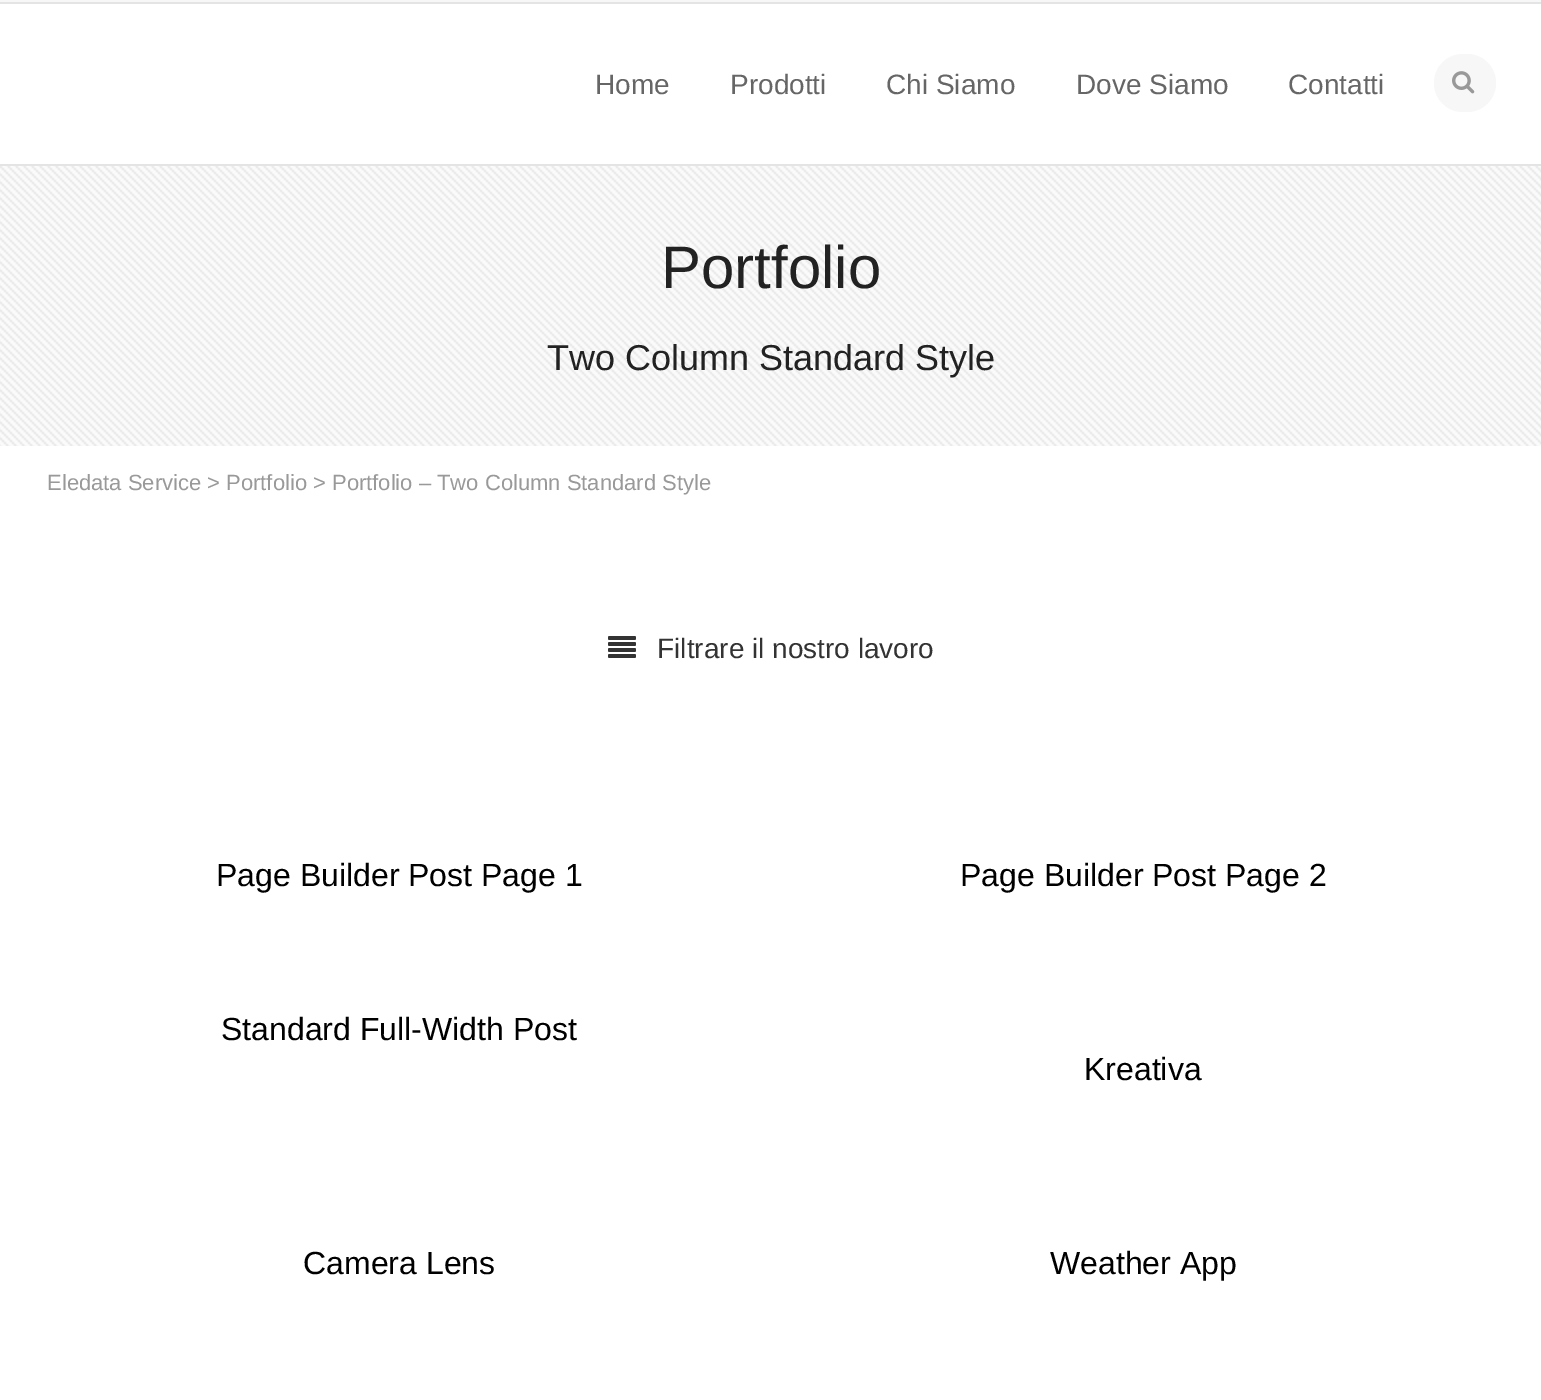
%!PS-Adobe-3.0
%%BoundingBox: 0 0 1541 1400
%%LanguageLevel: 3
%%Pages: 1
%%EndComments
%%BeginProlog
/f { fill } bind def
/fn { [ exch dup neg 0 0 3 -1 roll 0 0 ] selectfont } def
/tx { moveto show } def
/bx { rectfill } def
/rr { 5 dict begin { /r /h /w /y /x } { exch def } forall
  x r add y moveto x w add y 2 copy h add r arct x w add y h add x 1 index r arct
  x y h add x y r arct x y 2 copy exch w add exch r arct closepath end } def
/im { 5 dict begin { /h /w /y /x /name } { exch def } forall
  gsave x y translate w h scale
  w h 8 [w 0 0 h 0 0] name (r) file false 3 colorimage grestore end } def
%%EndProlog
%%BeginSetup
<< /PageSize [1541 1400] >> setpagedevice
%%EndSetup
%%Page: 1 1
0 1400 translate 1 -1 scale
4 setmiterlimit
1 setgray
0 0 1541 1400 bx
0.969 setgray
0 0 1541 2 bx
0.894 setgray
0 2 1541 2 bx
0 164 1541 2 bx
/LiberationSans-Regular 28 fn
0.4 setgray
(Home) 595 94 tx
(Prodotti) 730 94 tx
(Chi Siamo) 886 94 tx
(Dove Siamo) 1076 94 tx
(Contatti) 1288 94 tx
0.969 setgray
1434 54 62 58 29 rr f
(image0.raw) 1452 71 23 23 im
(image1.raw) 0 166 1541 280 im
/LiberationSans-Regular 60 fn
0.133 setgray
(Portfolio) 661 288 tx
/LiberationSans-Regular 36 fn
(Two Column Standard Style) 547 370 tx
/LiberationSans-Regular 22 fn
0.6 setgray
(Eledata Service > Portfolio > Portfolio – Two Column Standard Style) 47 490 tx
(image2.raw) 608 636 28 22 im
/LiberationSans-Regular 28 fn
0.2 setgray
(Filtrare il nostro lavoro) 657 658 tx
/LiberationSans-Regular 32 fn
0 setgray
(Page Builder Post Page 1) 216 886 tx
(Page Builder Post Page 2) 960 886 tx
(Standard Full-Width Post) 221 1040 tx
(Kreativa) 1084 1080 tx
(Camera Lens) 303 1274 tx
(Weather App) 1050 1274 tx
showpage
%%EOF
